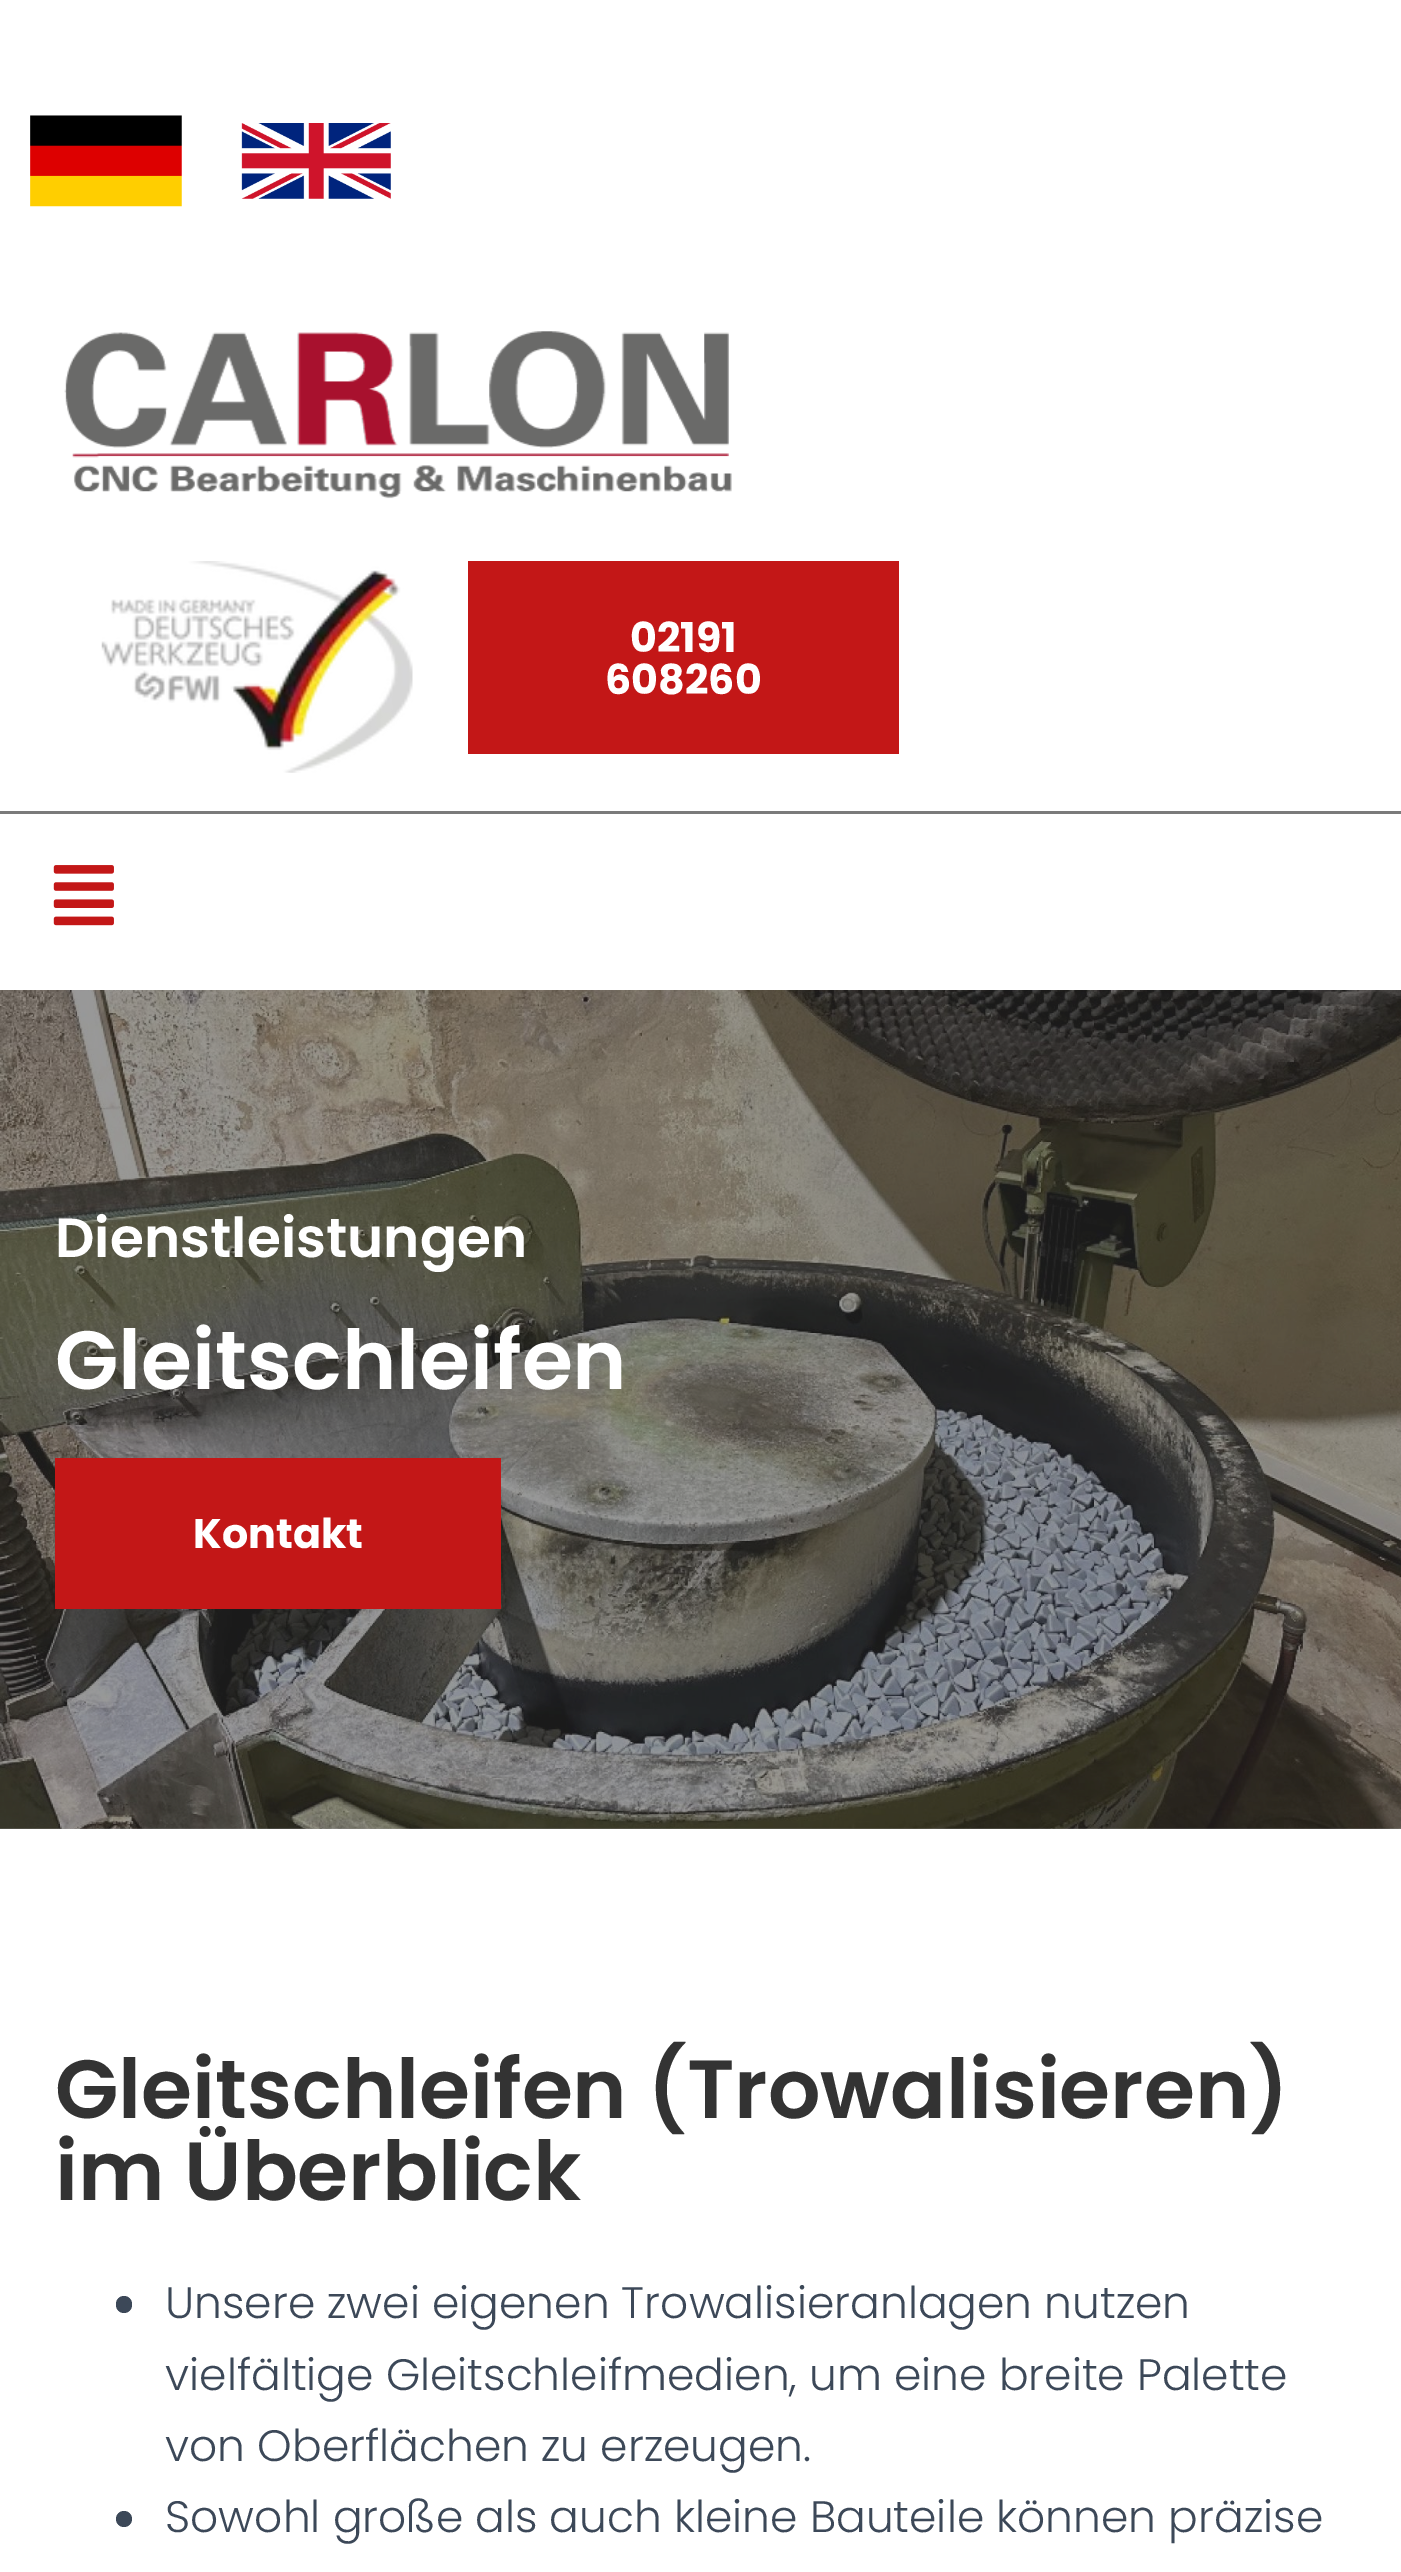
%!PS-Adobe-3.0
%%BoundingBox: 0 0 1401 2572
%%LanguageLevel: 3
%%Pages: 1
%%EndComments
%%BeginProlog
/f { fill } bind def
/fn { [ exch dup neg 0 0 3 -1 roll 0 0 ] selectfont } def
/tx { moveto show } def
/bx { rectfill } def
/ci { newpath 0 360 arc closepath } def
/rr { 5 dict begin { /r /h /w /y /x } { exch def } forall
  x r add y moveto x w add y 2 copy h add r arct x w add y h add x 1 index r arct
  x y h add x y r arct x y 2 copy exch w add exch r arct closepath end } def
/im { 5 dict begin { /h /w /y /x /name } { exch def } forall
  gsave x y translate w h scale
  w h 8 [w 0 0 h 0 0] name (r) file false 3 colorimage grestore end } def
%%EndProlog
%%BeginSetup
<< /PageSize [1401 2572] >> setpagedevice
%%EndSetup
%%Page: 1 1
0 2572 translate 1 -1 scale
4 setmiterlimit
1 setgray
0 0 1401 2572 bx
(image0.raw) 30 115 152 92 im
(image1.raw) 241 123 150 76 im
(image2.raw) 64 331 668 168 im
(image3.raw) 101 561 312 212 im
0.765 0.09 0.09 setrgbcolor
468 561 431 193 bx
/Poppins-Bold 41.25 fn
1 setgray
(02191) 630 652 tx
(608260) 605 694 tx
0.478 setgray
0 811 1401 3 bx
(image4.raw) 53 865 61 61 im
(image5.raw) 0 990 1401 839 im
/Poppins-SemiBold 55 fn
1 setgray
(Dienstleistungen) 55 1257 tx
/Poppins-SemiBold 82.5 fn
(Gleitschleifen) 55 1389 tx
0.765 0.09 0.09 setrgbcolor
55 1458 446 151 bx
/Poppins-Bold 41.25 fn
1 setgray
(Kontakt) 193 1548 tx
/Poppins-SemiBold 82.5 fn
0.2 setgray
(Gleitschleifen \(Trowalisieren\)) 55 2118 tx
(im Überblick) 55 2200 tx
0.235 0.282 0.345 setrgbcolor
116 2296 16 17 8 rr f
/Poppins-Light 44 fn
(Unsere zwei eigenen Trowalisieranlagen nutzen) 165 2318 tx
(vielfältige Gleitschleifmedien, um eine breite Palette) 165 2390 tx
(von Oberflächen zu erzeugen.) 165 2461 tx
124 2519 8 ci f
(Sowohl große als auch kleine Bauteile können präzise) 165 2532 tx
showpage
%%EOF
